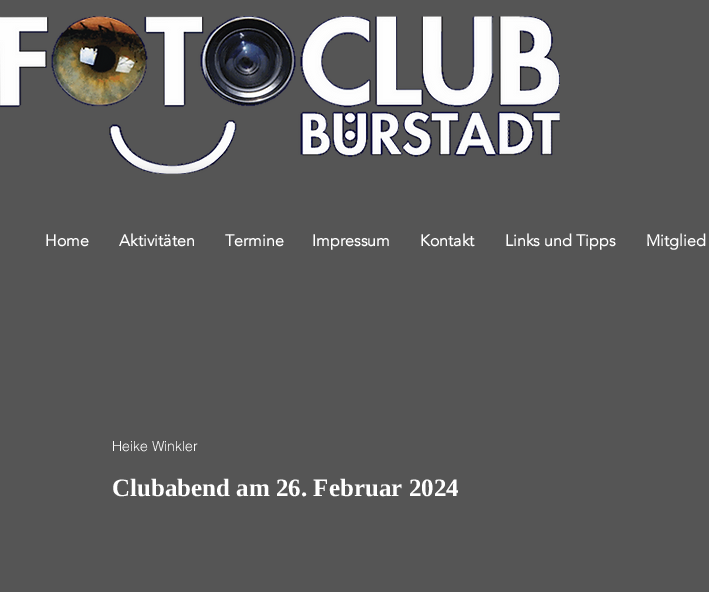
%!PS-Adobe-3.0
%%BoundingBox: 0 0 709 592
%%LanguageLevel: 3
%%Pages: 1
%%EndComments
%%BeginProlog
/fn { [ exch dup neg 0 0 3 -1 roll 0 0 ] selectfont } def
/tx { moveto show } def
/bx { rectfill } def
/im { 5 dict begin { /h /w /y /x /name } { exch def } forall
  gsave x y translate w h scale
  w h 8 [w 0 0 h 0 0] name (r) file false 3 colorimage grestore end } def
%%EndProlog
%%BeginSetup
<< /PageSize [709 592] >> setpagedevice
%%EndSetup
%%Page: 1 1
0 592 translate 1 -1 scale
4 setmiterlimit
0.333 setgray
0 0 709 592 bx
(image0.raw) 0 16 560 158 im
/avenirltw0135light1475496-Bold 16 fn
1 setgray
(Home) 45 246 tx
(Aktivitäten) 119 246 tx
(Termine) 225 246 tx
(Impressum) 312 246 tx
(Kontakt) 420 246 tx
(Links und Tipps) 505 246 tx
(Mitglied) 646 246 tx
/helvetica-Light 14 fn
(Heike Winkler) 112 451 tx
/LiberationSerif-Bold 25 fn
(Clubabend am 26. Februar 2024) 112 496 tx
showpage
%%EOF
